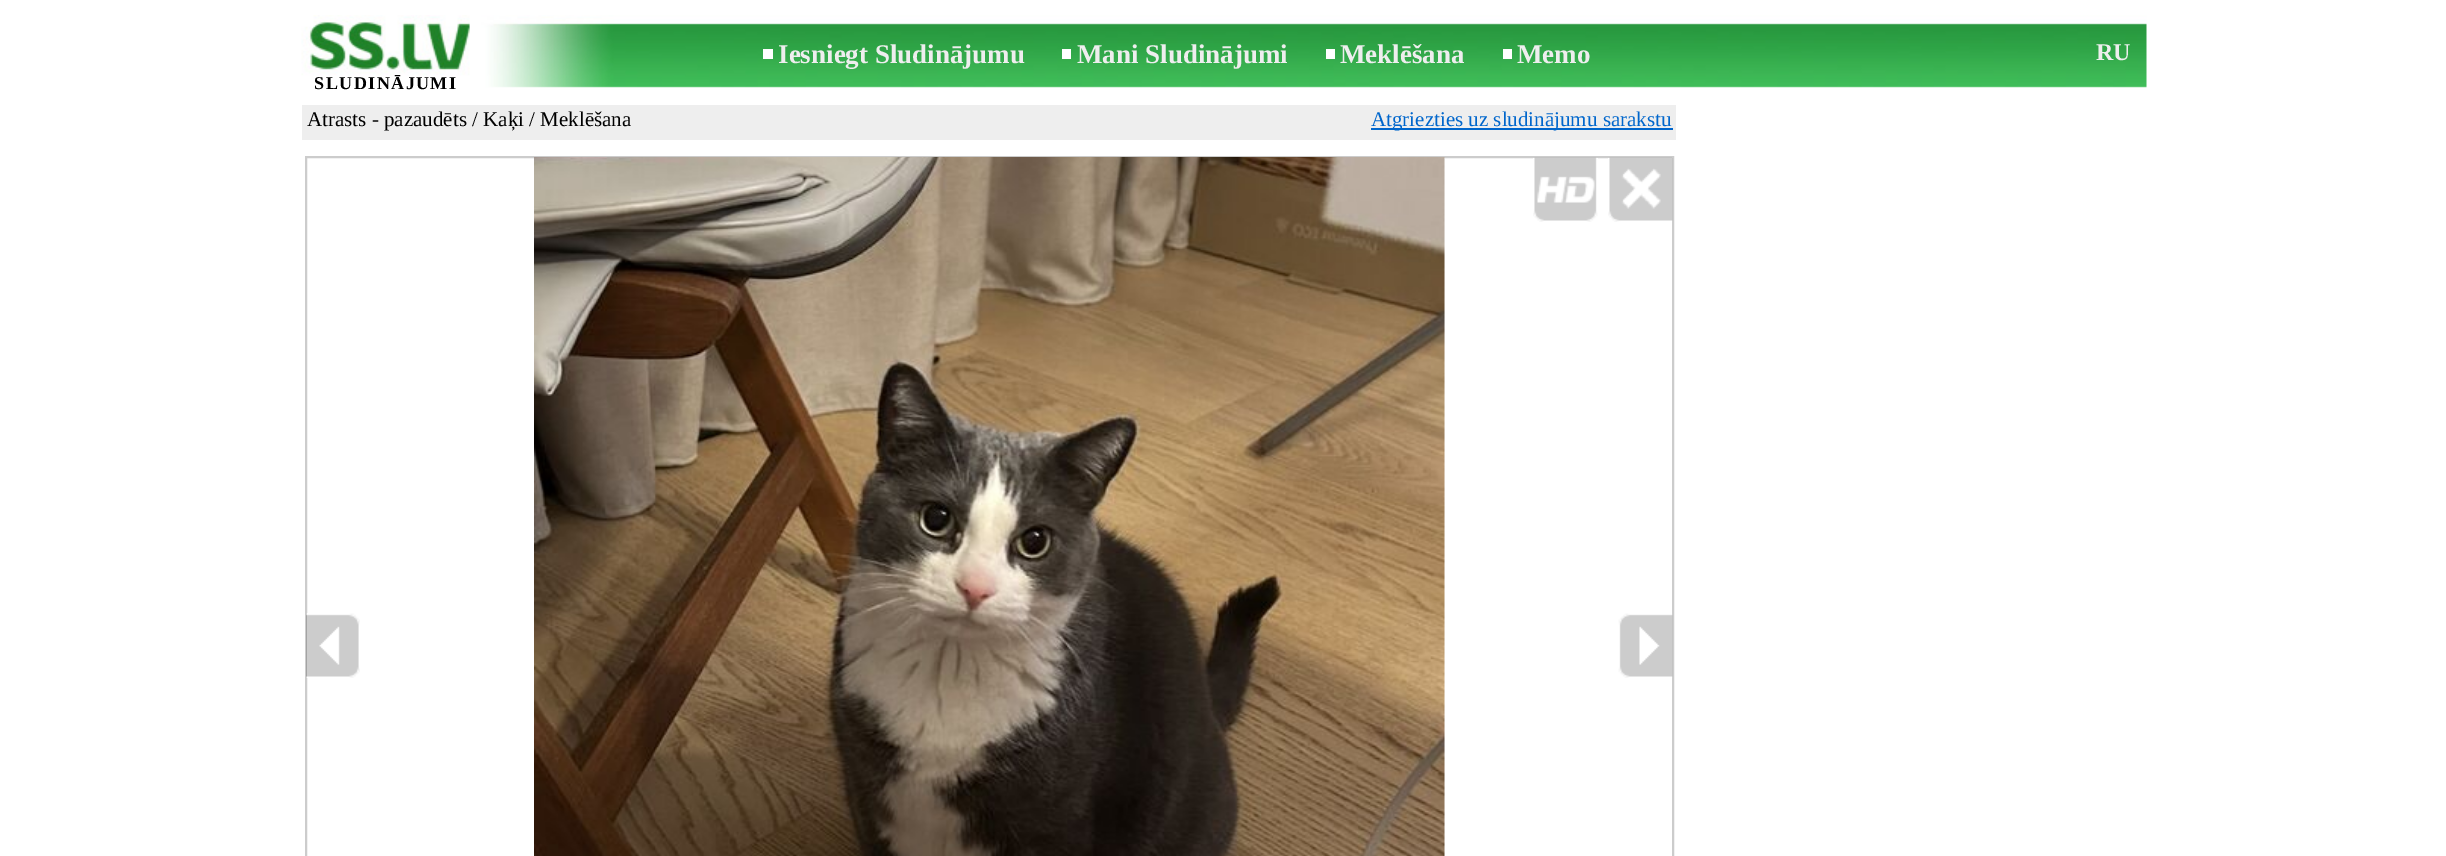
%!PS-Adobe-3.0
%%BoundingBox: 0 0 2446 856
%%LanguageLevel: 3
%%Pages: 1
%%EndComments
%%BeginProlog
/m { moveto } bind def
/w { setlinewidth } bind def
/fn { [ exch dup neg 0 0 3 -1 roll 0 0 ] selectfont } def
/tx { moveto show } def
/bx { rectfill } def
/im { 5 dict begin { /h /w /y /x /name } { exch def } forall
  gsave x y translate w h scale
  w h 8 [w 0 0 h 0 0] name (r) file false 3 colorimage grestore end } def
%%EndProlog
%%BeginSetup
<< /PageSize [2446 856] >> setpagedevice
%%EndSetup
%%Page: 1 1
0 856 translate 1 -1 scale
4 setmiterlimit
1 setgray
0 0 2446 856 bx
(image0.raw) 301 15 1846 73 im
/LiberationSerif-Bold 27 fn
0.933 setgray
(Iesniegt Sludinājumu) 778 63 tx
1 setgray
763 49 10 10 bx
0.933 setgray
(Mani Sludinājumi) 1077 63 tx
1 setgray
1062 49 9 10 bx
0.933 setgray
(Meklēšana) 1340 63 tx
1 setgray
1326 49 9 10 bx
0.933 setgray
(Memo) 1517 63 tx
1 setgray
1503 49 9 10 bx
/LiberationSerif-Bold 24 fn
0.933 setgray
(RU) 2096 60 tx
/LiberationSerif-Bold 18 fn
0 setgray
314 89 m 1.5 0 (SLUDINĀJUMI) ashow
0.933 setgray
302 105 1374 35 bx
/LiberationSerif-Regular 21 fn
0 setgray
(Atrasts - pazaudēts / Kaķi / Meklēšana) 307 126 tx
0 0.4 0.8 setrgbcolor
1371 128 302 2 bx
(Atgriezties uz sludinājumu sarakstu) 1371 126 tx
0.8 setgray
2 w
306 157 1367 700 rectstroke
(image1.raw) 534 157 911 699 im
(image2.raw) 1533 157 65 65 im
(image3.raw) 1608 157 65 65 im
(image4.raw) 306 613 54 65 im
(image5.raw) 1618 613 55 65 im
showpage
%%EOF
